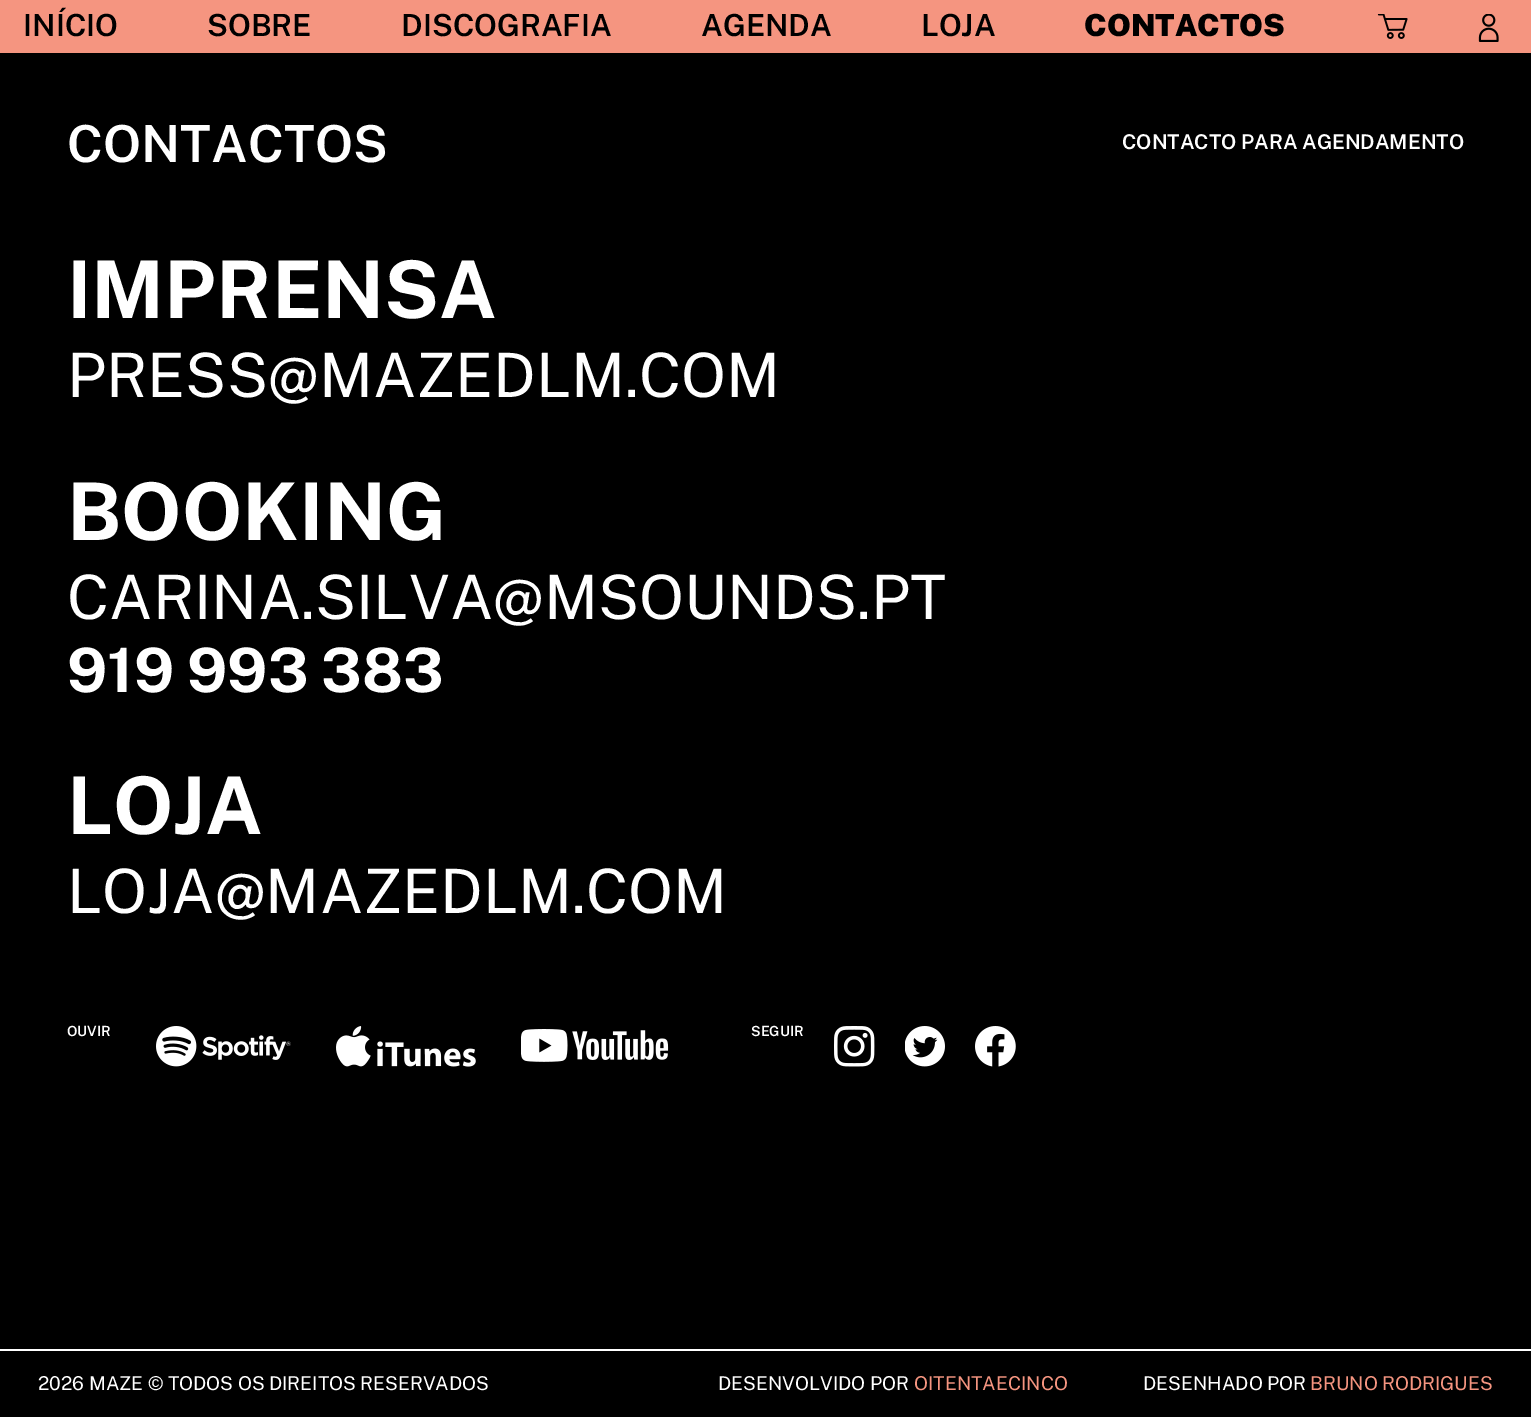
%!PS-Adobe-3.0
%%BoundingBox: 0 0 1531 1417
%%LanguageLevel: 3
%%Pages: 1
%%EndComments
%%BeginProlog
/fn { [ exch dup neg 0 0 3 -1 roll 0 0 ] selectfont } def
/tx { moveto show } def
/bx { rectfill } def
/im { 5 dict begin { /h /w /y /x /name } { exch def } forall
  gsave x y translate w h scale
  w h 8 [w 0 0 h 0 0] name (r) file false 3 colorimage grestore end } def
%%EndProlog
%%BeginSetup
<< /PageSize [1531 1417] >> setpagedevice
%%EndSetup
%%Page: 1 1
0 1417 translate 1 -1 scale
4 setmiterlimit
0 setgray
0 0 1531 1417 bx
0.961 0.584 0.502 setrgbcolor
0 0 1531 53 bx
/PublicSans-SemiBold 30.5 fn
0 setgray
(INÍCIO) 23 36 tx
(SOBRE) 207 36 tx
(DISCOGRAFIA) 401 36 tx
(AGENDA) 701 36 tx
(LOJA) 921 36 tx
/PublicSans-Black 30.5 fn
(CONTACTOS) 1084 36 tx
(image0.raw) 1377 14 31 25 im
(image1.raw) 1478 14 21 28 im
/PublicSans-SemiBold 51 fn
1 setgray
(CONTACTOS) 67 162 tx
/PublicSans-SemiBold 20.4 fn
(CONTACTO PARA AGENDAMENTO) 1122 149 tx
/PublicSans-Bold 79.5 fn
(IMPRENSA) 67 318 tx
/PublicSans-Regular 61.25 fn
(PRESS@MAZEDLM.COM) 67 397 tx
/PublicSans-Bold 79.5 fn
(BOOKING) 67 540 tx
/PublicSans-Regular 61.25 fn
(CARINA.SILVA@MSOUNDS.PT) 67 619 tx
/PublicSans-Bold 61.25 fn
(919 993 383) 67 692 tx
/PublicSans-Bold 79.5 fn
(LOJA) 67 834 tx
/PublicSans-Regular 61.25 fn
(LOJA@MAZEDLM.COM) 67 913 tx
/PublicSans-SemiBold 14 fn
(OUVIR) 67 1036 tx
(image2.raw) 156 1026 135 41 im
(image3.raw) 336 1026 140 41 im
(image4.raw) 521 1029 148 33 im
(SEGUIR) 751 1036 tx
(image5.raw) 834 1026 41 41 im
(image6.raw) 905 1026 40 41 im
(image7.raw) 975 1026 41 41 im
0 1349 1531 2 bx
/PublicSans-Regular 19.1 fn
(2026 MAZE © TODOS OS DIREITOS RESERVADOS) 38 1390 tx
(DESENVOLVIDO POR) 718 1390 tx
0.961 0.584 0.502 setrgbcolor
(OITENTAECINCO) 914 1390 tx
1 setgray
(DESENHADO POR) 1143 1390 tx
0.961 0.584 0.502 setrgbcolor
(BRUNO RODRIGUES) 1310 1390 tx
showpage
%%EOF
